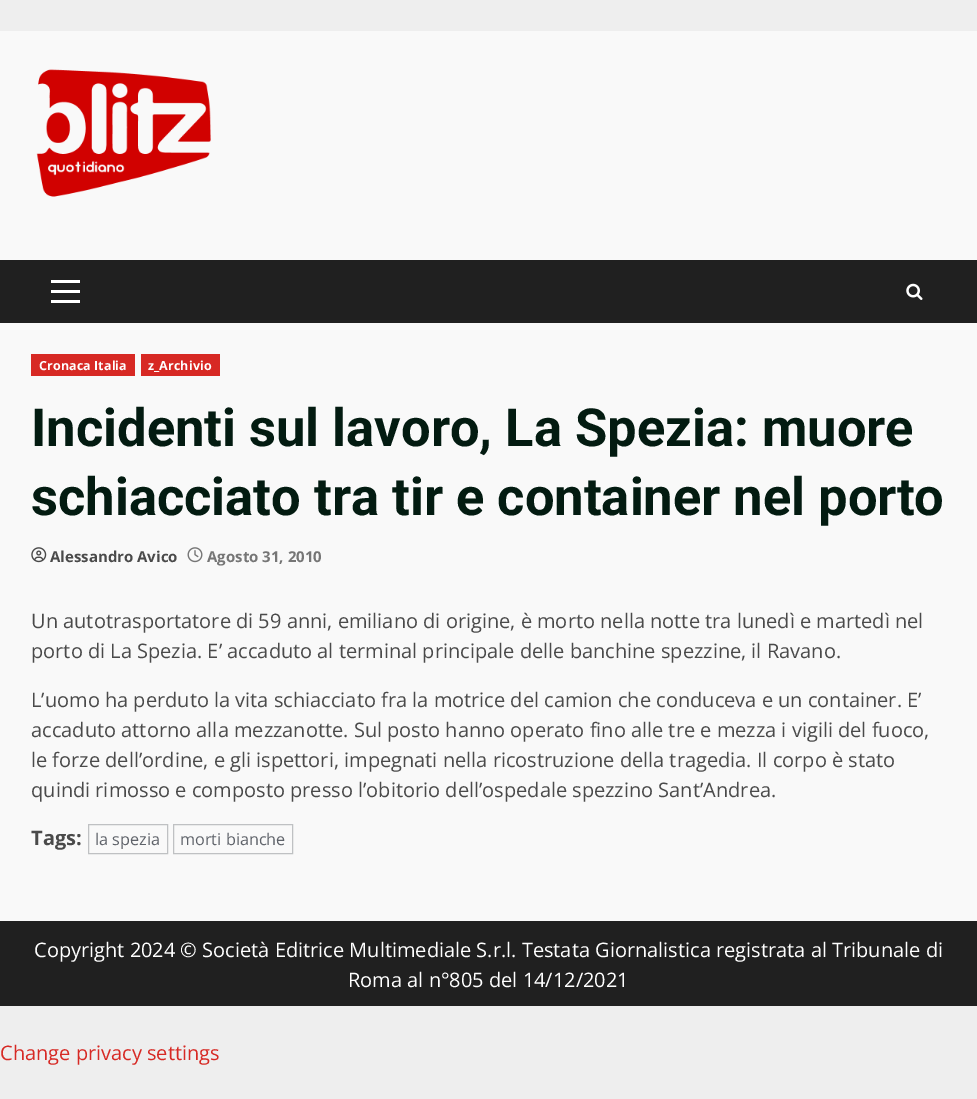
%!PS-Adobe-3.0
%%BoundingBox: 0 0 977 1099
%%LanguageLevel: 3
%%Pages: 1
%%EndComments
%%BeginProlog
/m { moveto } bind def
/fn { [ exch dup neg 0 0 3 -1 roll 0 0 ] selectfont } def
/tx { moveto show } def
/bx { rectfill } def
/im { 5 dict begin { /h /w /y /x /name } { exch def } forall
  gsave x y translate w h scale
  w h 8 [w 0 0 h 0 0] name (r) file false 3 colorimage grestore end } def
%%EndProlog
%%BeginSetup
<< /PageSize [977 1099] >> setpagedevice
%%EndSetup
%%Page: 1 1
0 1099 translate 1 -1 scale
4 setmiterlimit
0.933 setgray
0 0 977 1099 bx
0.976 setgray
0 31 977 890 bx
(image0.raw) 36 69 175 128 im
0.125 setgray
0 260 977 63 bx
1 setgray
51 290 29 3 bx
51 280 29 3 bx
51 300 29 3 bx
(image1.raw) 906 283 17 17 im
0.843 0.161 0.141 setrgbcolor
31 354 104 22 bx
/OpenSans-Bold 12.5 fn
1 setgray
39 370 m 0.1 0 (Cronaca Italia) ashow
0.843 0.161 0.141 setrgbcolor
141 354 79 22 bx
1 setgray
148 370 m 0.1 0 (z_Archivio) ashow
/Roboto-Bold 52.5 fn
0.012 0.106 0.067 setrgbcolor
(Incidenti sul lavoro, La Spezia: muore) 31 446 tx
(schiacciato tra tir e container nel porto) 31 515 tx
(image2.raw) 31 547 16 16 im
/OpenSans-Bold 15 fn
0.29 setgray
(Alessandro Avico) 50 562 tx
(image3.raw) 187 547 16 16 im
0.463 setgray
(Agosto 31, 2010) 207 562 tx
/OpenSans-Regular 20 fn
0.29 setgray
(Un autotrasportatore di 59 anni, emiliano di origine, è morto nella notte tra lunedì e martedì nel) 31 628 tx
(porto di La Spezia. E’ accaduto al terminal principale delle banchine spezzine, il Ravano.) 31 658 tx
(L’uomo ha perduto la vita schiacciato fra la motrice del camion che conduceva e un container. E’) 31 707 tx
(accaduto attorno alla mezzanotte. Sul posto hanno operato fino alle tre e mezza i vigili del fuoco,) 31 737 tx
(le forze dell’ordine, e gli ispettori, impegnati nella ricostruzione della tragedia. Il corpo è stato) 31 767 tx
(quindi rimosso e composto presso l’obitorio dell’ospedale spezzino Sant’Andrea.) 31 797 tx
/OpenSans-Bold 20 fn
(Tags:) 31 845 tx
0.749 0.757 0.765 setrgbcolor
88.5 824.5 79 29 rectstroke
/OpenSans-Regular 16.25 fn
0.373 0.388 0.416 setrgbcolor
(la spezia) 95 845 tx
0.749 0.757 0.765 setrgbcolor
173.5 824.5 119 29 rectstroke
0.373 0.388 0.416 setrgbcolor
(morti bianche) 180 845 tx
0.125 setgray
0 921 977 85 bx
/OpenSans-Regular 20 fn
1 setgray
(Copyright 2024 © Società Editrice Multimediale S.r.l. Testata Giornalistica registrata al Tribunale di) 34 957 tx
(Roma al n°805 del 14/12/2021) 348 987 tx
0.843 0.161 0.141 setrgbcolor
(Change privacy settings) 0 1060 tx
showpage
%%EOF
